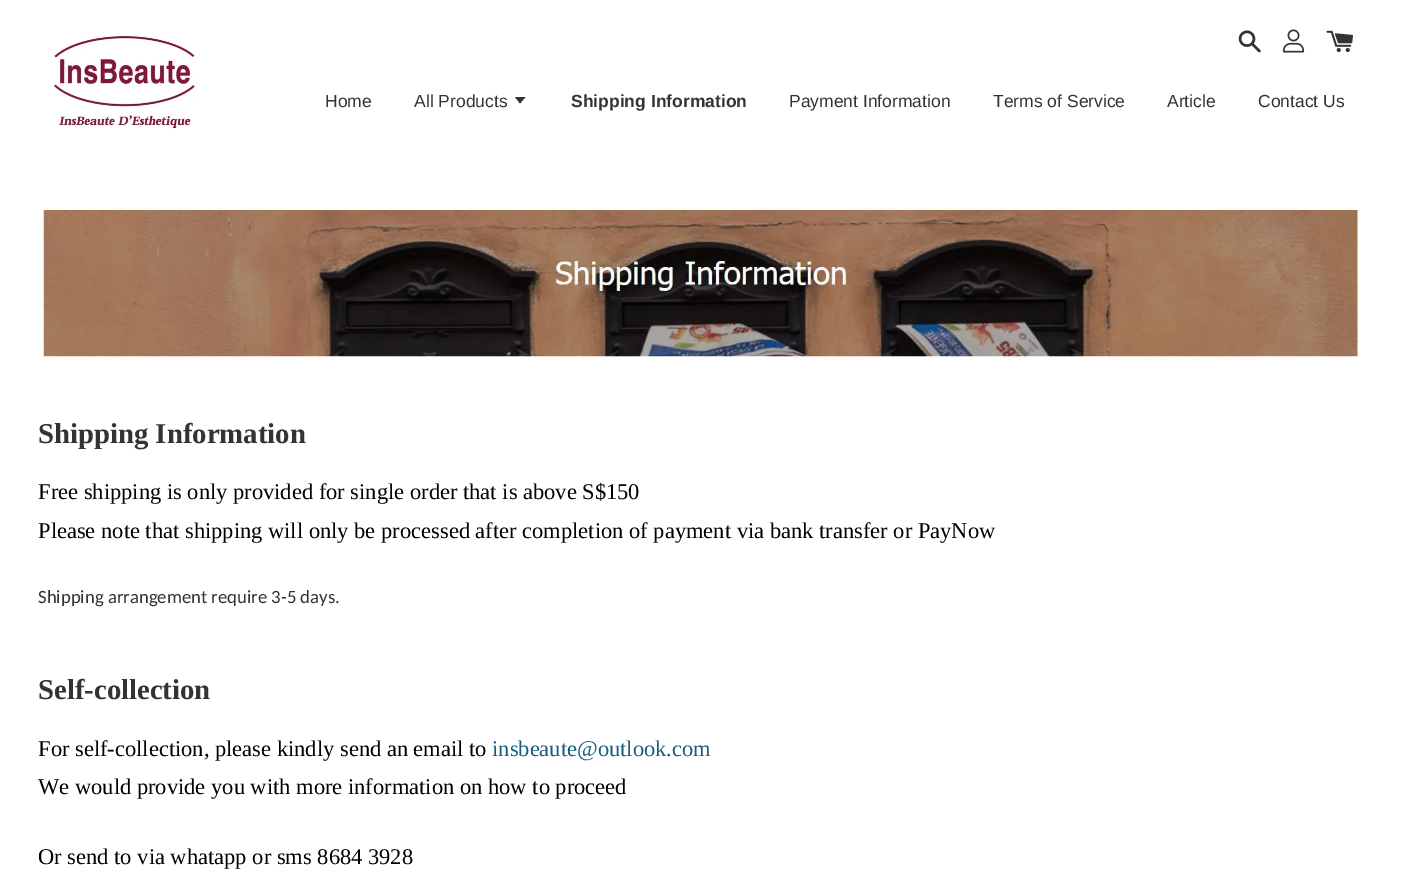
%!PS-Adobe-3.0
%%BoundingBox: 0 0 1401 881
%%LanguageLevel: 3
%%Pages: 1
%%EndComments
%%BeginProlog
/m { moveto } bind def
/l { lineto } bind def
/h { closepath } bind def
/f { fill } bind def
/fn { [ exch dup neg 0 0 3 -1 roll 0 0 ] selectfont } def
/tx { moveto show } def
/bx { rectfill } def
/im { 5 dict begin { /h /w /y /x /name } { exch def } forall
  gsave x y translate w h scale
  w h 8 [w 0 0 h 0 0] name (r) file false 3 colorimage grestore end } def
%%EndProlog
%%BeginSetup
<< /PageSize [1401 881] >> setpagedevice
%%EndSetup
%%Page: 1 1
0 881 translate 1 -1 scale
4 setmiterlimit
1 setgray
0 0 1401 881 bx
(image0.raw) 53 35 145 96 im
(image1.raw) 1238 30 23 23 im
(image2.raw) 1282 29 23 24 im
(image3.raw) 1326 30 27 23 im
/LiberationSans-Regular 17.5 fn
0.2 setgray
(Home) 325 107 tx
(All Products) 414 107 tx
515 97 m 520 103.5 l 525.5 97 l h f
/LiberationSans-Bold 17.5 fn
(Shipping Information) 571 107 tx
/LiberationSans-Regular 17.5 fn
(Payment Information) 789 107 tx
(Terms of Service) 993 107 tx
(Article) 1167 107 tx
(Contact Us) 1258 107 tx
(image4.raw) 43 210 1315 147 im
/LiberationSerif-Bold 28.75 fn
(Shipping Information) 38 443 tx
/LiberationSerif-Regular 22.5 fn
0 setgray
(Free shipping is only provided for single order that is above S$150) 38 499 tx
(Please note that shipping will only be processed after completion of payment via bank transfer or PayNow) 38 538 tx
/Carlito-Regular 18.75 fn
0.2 setgray
(Shipping arrangement require 3-5 days.) 38 603 tx
/LiberationSerif-Bold 28.75 fn
(Self-collection) 38 699 tx
/LiberationSerif-Regular 22.5 fn
0 setgray
(For self-collection, please kindly send an email to) 38 756 tx
0.094 0.365 0.502 setrgbcolor
(insbeaute@outlook.com) 492 756 tx
0 setgray
(We would provide you with more information on how to proceed) 38 794 tx
(Or send to via whatapp or sms 8684 3928) 38 864 tx
showpage
%%EOF
